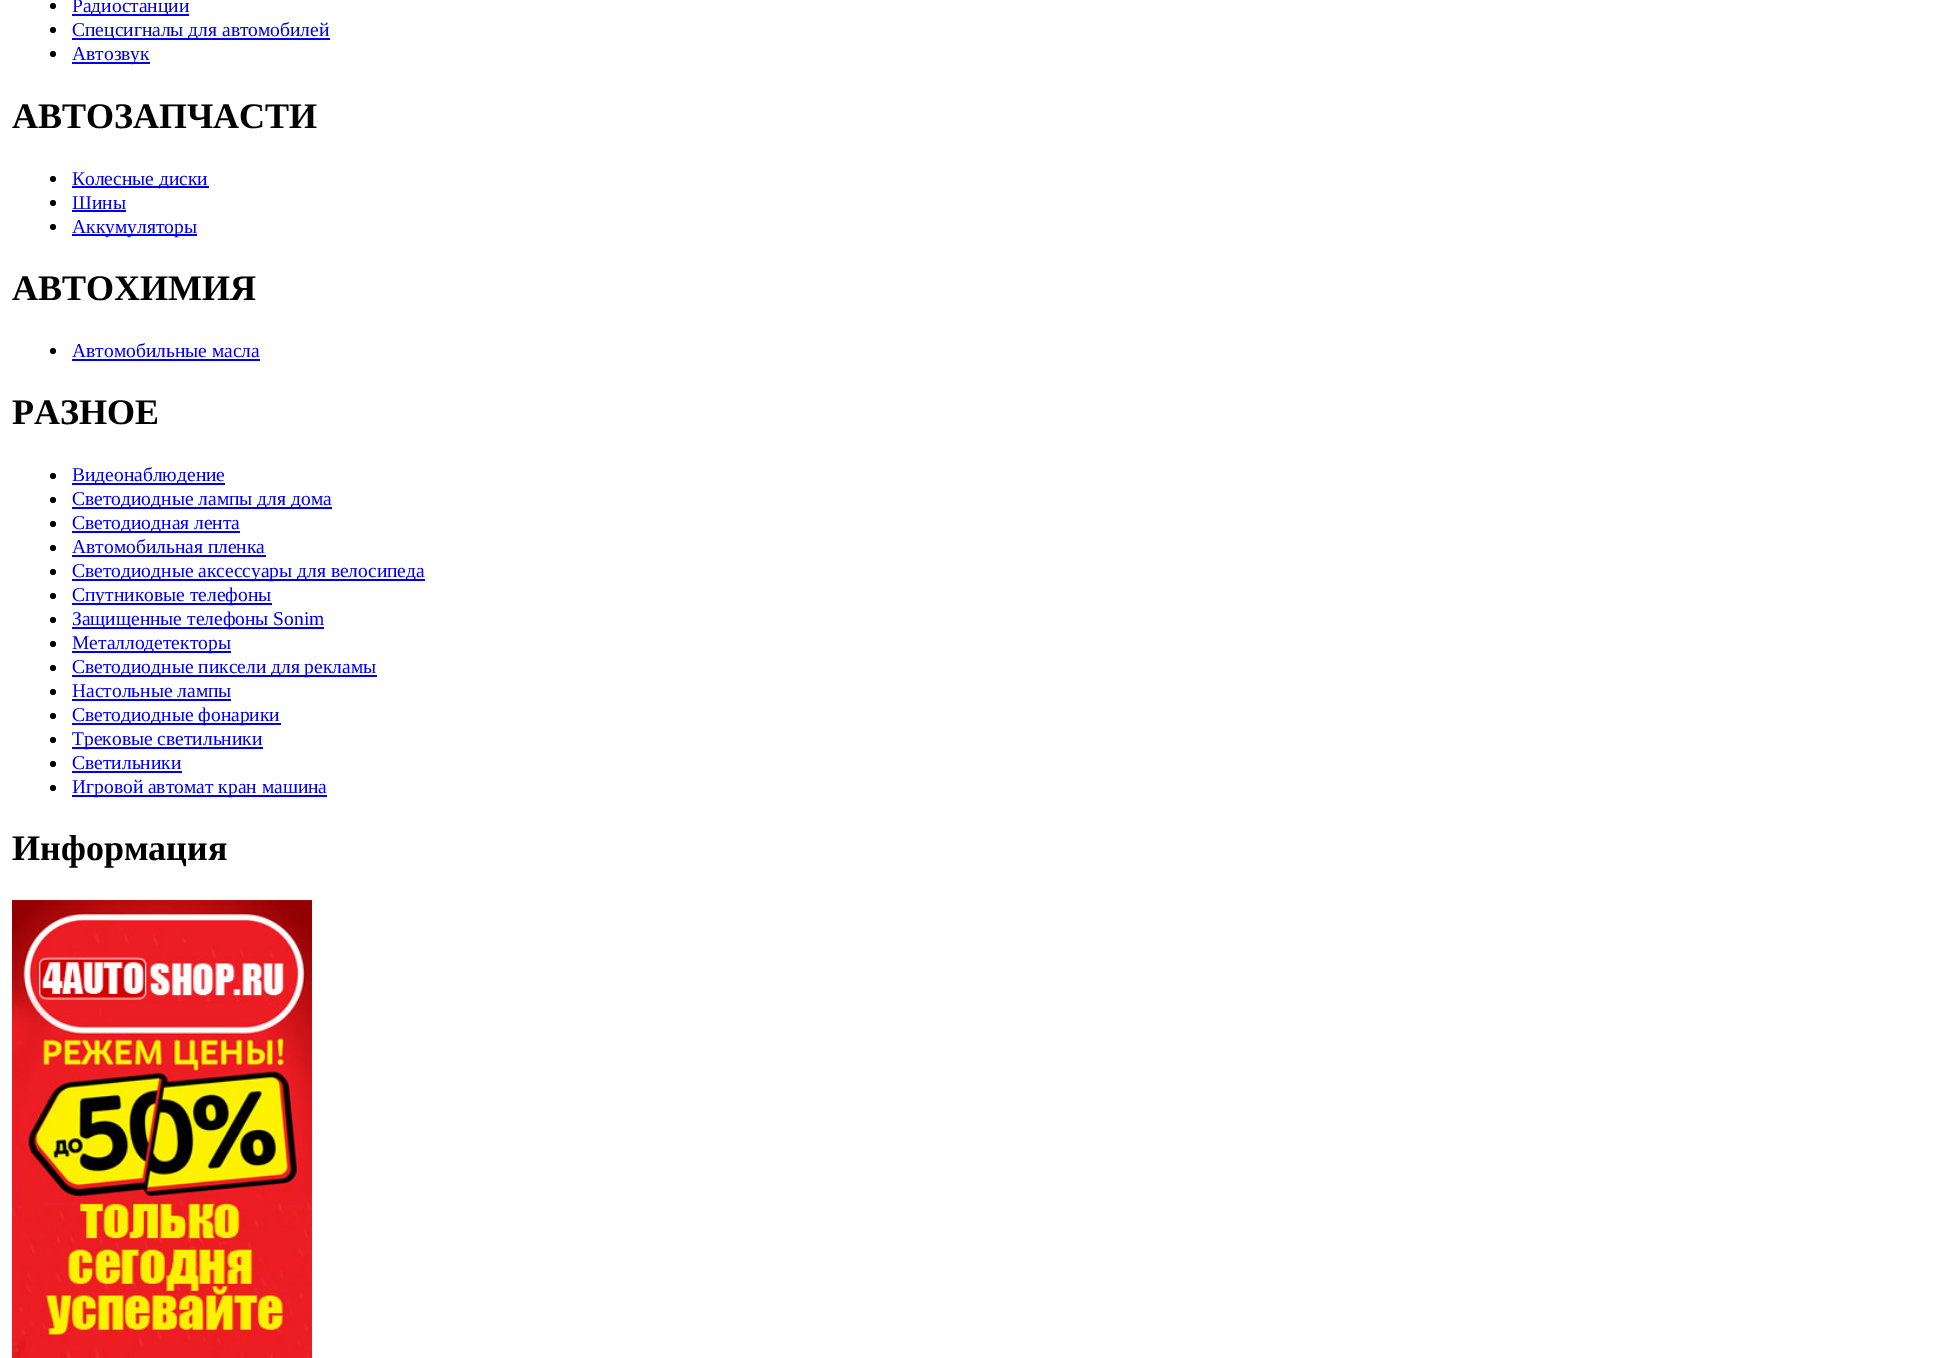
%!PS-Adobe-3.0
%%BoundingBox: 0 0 1952 1358
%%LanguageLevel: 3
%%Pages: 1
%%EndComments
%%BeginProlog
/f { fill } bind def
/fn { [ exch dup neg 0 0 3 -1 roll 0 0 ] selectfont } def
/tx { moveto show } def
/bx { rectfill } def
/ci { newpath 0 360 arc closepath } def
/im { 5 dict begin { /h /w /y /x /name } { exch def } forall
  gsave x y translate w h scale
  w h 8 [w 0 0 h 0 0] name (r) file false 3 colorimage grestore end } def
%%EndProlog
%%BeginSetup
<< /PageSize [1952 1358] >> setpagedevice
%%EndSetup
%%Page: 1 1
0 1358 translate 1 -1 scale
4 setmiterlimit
1 setgray
0 0 1952 1358 bx
0 setgray
53 6 3 ci f
0 0 0.933 setrgbcolor
72 14 117 2 bx
/LiberationSerif-Regular 19.5 fn
(Радиостанции) 72 12 tx
0 setgray
53 30 3 ci f
0 0 0.933 setrgbcolor
72 38 258 2 bx
(Спецсигналы для автомобилей) 72 36 tx
0 setgray
53 54 3 ci f
0 0 0.933 setrgbcolor
72 62 78 2 bx
(Автозвук) 72 60 tx
/LiberationSerif-Bold 36 fn
0 setgray
(АВТОЗАПЧАСТИ) 12 128 tx
53 179 3 ci f
0 0 0.933 setrgbcolor
72 186 137 2 bx
/LiberationSerif-Regular 19.5 fn
(Колесные диски) 72 185 tx
0 setgray
53 203 3 ci f
0 0 0.933 setrgbcolor
(Шины) 72 209 tx
72 210 54 2 bx
0 setgray
53 227 3 ci f
0 0 0.933 setrgbcolor
72 234 125 2 bx
(Аккумуляторы) 72 233 tx
/LiberationSerif-Bold 36 fn
0 setgray
(АВТОХИМИЯ) 12 300 tx
53 351 3 ci f
/LiberationSerif-Regular 19.5 fn
0 0 0.933 setrgbcolor
(Автомобильные масла) 72 357 tx
72 359 188 2 bx
/LiberationSerif-Bold 36 fn
0 setgray
(РАЗНОЕ) 12 424 tx
53 476 3 ci f
0 0 0.933 setrgbcolor
72 483 153 2 bx
/LiberationSerif-Regular 19.5 fn
(Видеонаблюдение) 72 481 tx
0 setgray
53 500 3 ci f
0 0 0.933 setrgbcolor
72 507 260 2 bx
(Светодиодные лампы для дома) 72 505 tx
0 setgray
53 524 3 ci f
0 0 0.933 setrgbcolor
72 531 168 2 bx
(Светодиодная лента) 72 529 tx
0 setgray
53 548 3 ci f
0 0 0.933 setrgbcolor
(Автомобильная пленка) 72 553 tx
72 555 194 2 bx
0 setgray
53 572 3 ci f
0 0 0.933 setrgbcolor
72 579 353 2 bx
(Светодиодные аксессуары для велосипеда) 72 577 tx
0 setgray
53 596 3 ci f
0 0 0.933 setrgbcolor
72 603 200 2 bx
(Спутниковые телефоны) 72 601 tx
0 setgray
53 620 3 ci f
0 0 0.933 setrgbcolor
72 627 252 2 bx
(Защищенные телефоны Sonim) 72 625 tx
0 setgray
53 644 3 ci f
0 0 0.933 setrgbcolor
72 651 159 2 bx
(Металлодетекторы) 72 649 tx
0 setgray
53 668 3 ci f
0 0 0.933 setrgbcolor
72 675 305 2 bx
(Светодиодные пиксели для рекламы) 72 673 tx
0 setgray
53 692 3 ci f
0 0 0.933 setrgbcolor
(Настольные лампы) 72 697 tx
72 699 159 2 bx
0 setgray
53 716 3 ci f
0 0 0.933 setrgbcolor
72 723 209 2 bx
(Светодиодные фонарики) 72 721 tx
0 setgray
53 740 3 ci f
0 0 0.933 setrgbcolor
72 747 191 2 bx
(Трековые светильники) 72 745 tx
0 setgray
53 764 3 ci f
0 0 0.933 setrgbcolor
(Светильники) 72 769 tx
72 771 110 2 bx
0 setgray
53 788 3 ci f
0 0 0.933 setrgbcolor
72 795 255 2 bx
(Игровой автомат кран машина) 72 793 tx
/LiberationSerif-Bold 36 fn
0 setgray
(Информация) 12 860 tx
(image0.raw) 12 900 300 458 im
showpage
%%EOF
